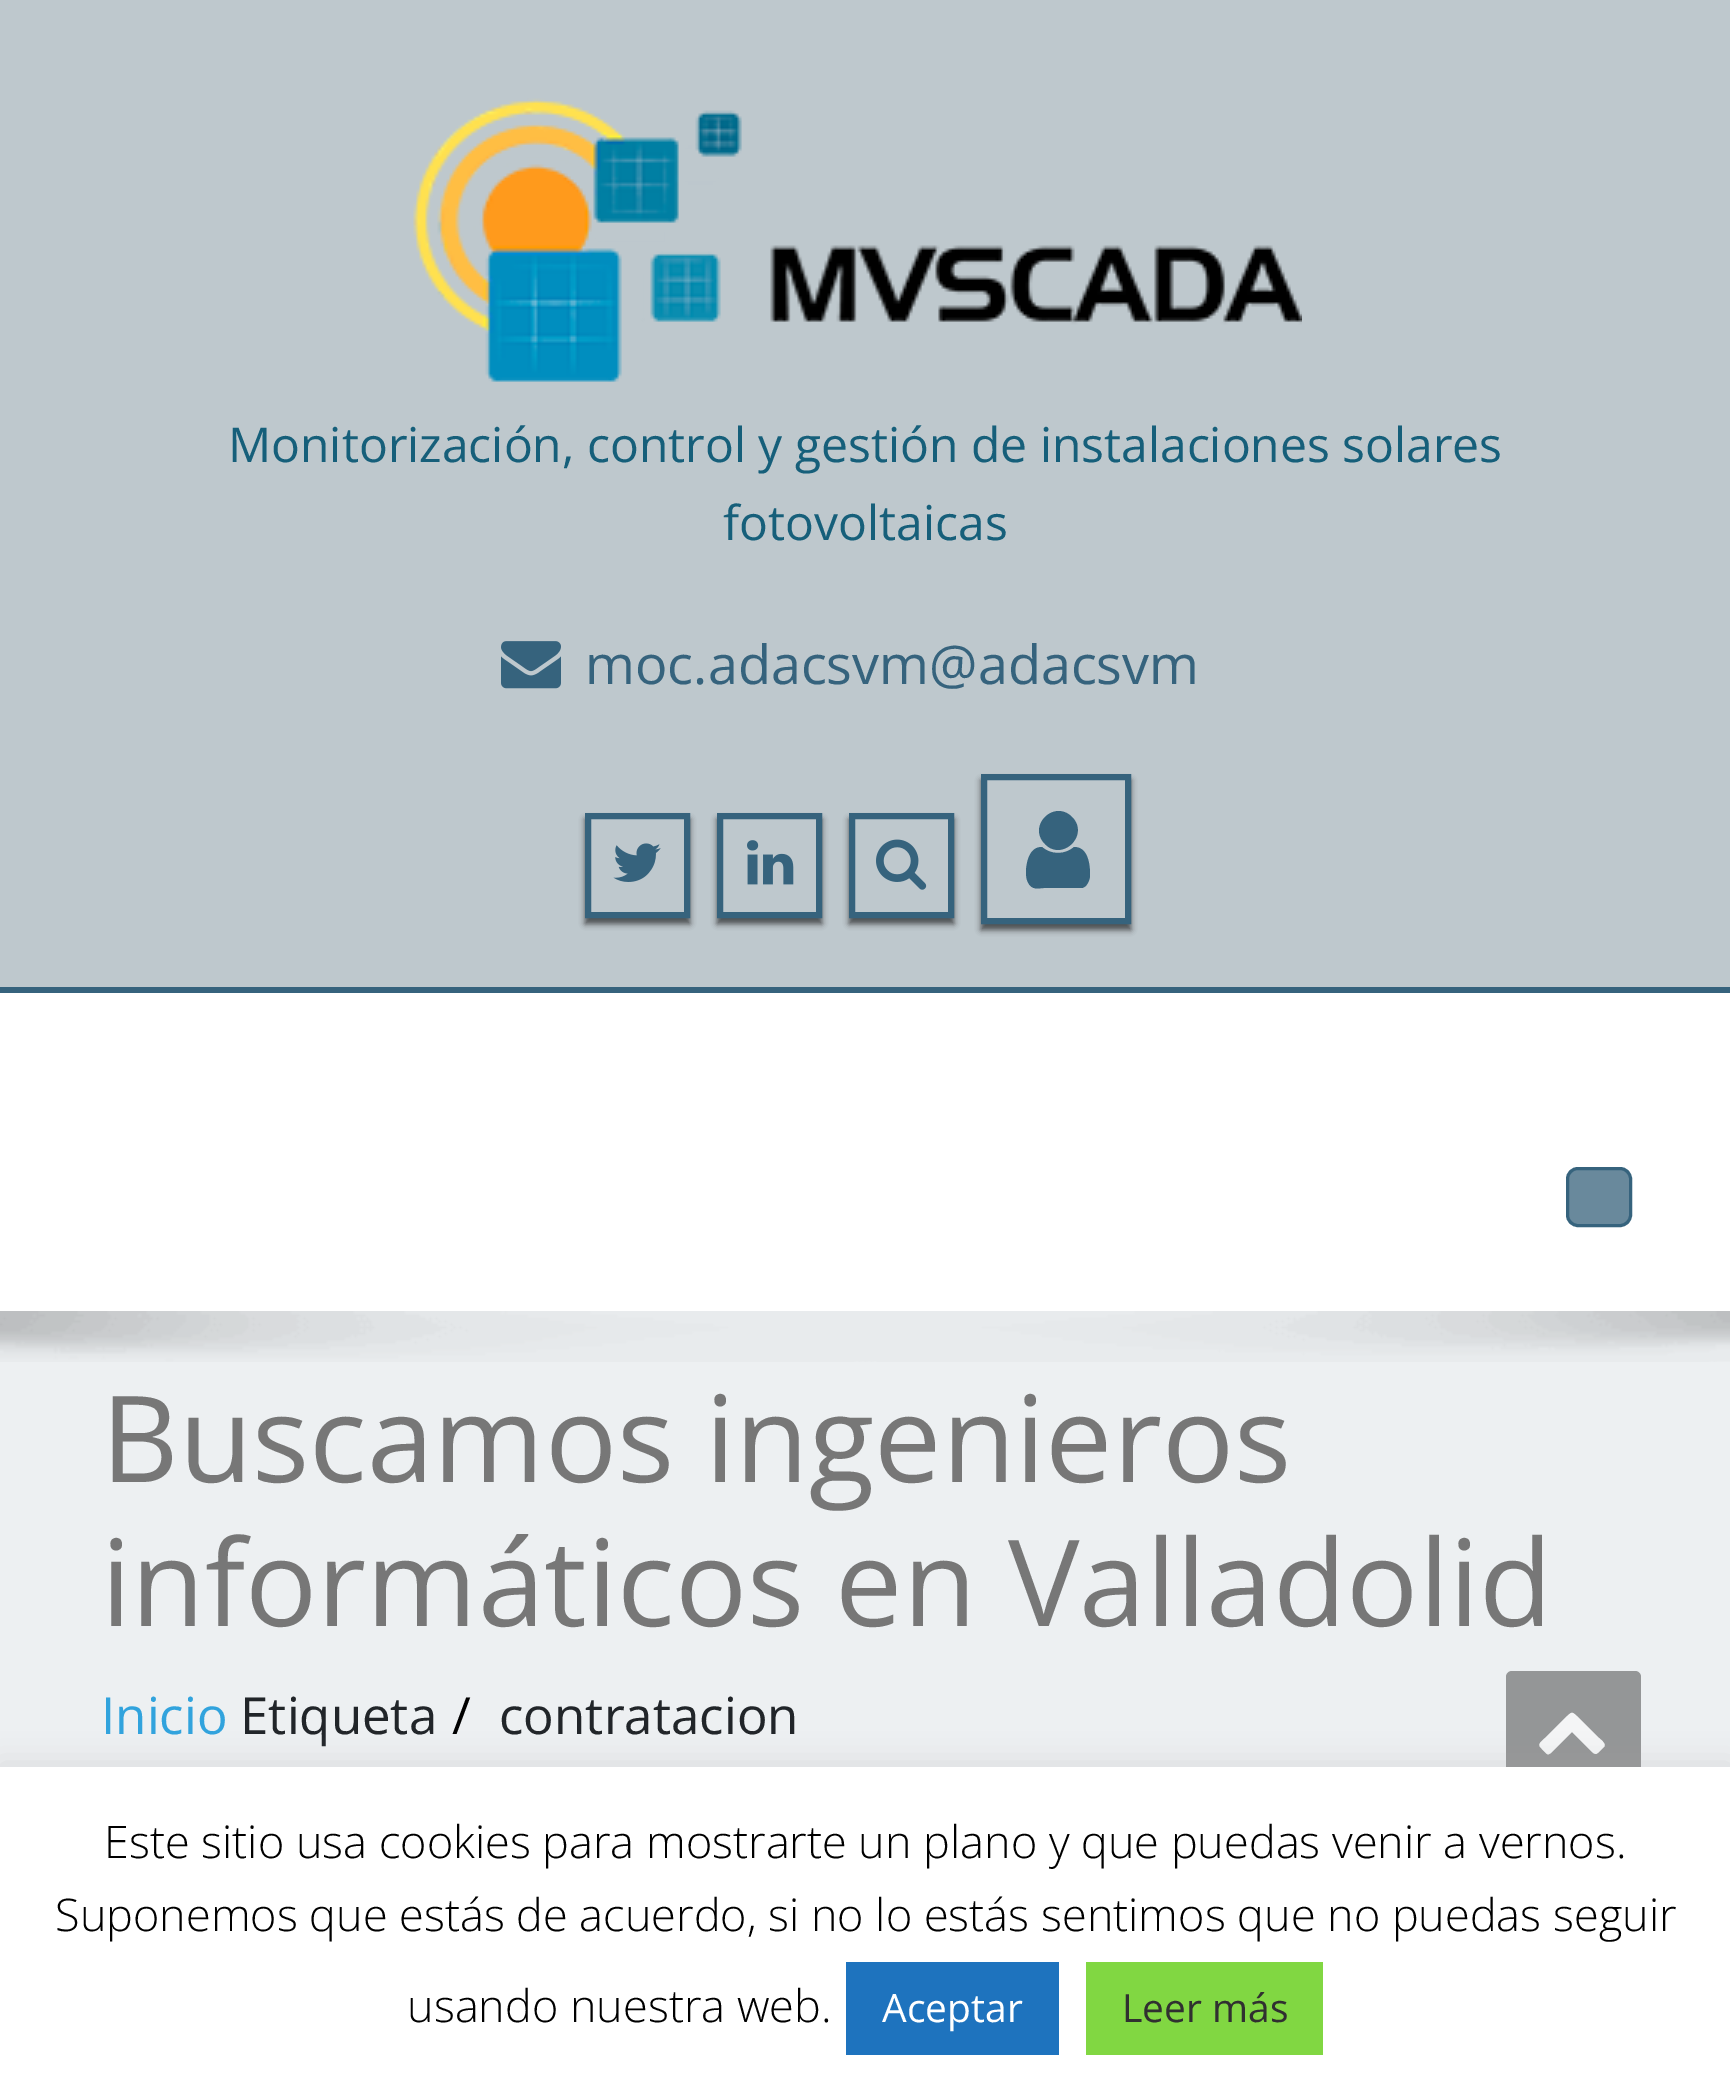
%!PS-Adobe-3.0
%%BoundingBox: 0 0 1730 2090
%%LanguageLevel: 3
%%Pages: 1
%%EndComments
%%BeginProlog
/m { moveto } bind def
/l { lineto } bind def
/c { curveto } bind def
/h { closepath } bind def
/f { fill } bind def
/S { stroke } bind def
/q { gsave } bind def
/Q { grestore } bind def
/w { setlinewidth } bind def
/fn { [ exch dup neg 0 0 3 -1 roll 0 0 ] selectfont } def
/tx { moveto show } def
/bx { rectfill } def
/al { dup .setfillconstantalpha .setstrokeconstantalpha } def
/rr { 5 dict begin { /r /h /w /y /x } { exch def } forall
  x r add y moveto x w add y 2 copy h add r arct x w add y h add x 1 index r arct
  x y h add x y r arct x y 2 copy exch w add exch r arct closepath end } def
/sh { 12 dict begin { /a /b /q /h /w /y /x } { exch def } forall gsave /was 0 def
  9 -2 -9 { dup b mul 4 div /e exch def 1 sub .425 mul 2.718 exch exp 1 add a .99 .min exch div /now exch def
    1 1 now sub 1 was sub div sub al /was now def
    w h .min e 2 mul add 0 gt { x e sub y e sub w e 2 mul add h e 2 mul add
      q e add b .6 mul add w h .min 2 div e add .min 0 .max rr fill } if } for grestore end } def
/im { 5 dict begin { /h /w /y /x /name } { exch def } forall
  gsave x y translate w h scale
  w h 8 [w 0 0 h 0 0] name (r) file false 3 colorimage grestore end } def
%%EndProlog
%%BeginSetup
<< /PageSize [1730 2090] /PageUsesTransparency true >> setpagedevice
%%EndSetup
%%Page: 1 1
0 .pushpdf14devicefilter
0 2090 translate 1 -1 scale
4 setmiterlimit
0.745 0.784 0.804 setrgbcolor
0 0 1730 2090 bx
(image0.raw) 413 98 889 284 im
/OpenSans-Regular 48 fn
0.086 0.373 0.478 setrgbcolor
(Monitorización, control y gestión de instalaciones solares) 228 462 tx
(fotovoltaicas) 723 540 tx
(image1.raw) 501 641 60 48 im
/OpenSans-Regular 54 fn
0.212 0.388 0.49 setrgbcolor
(moc.adacsvm@adacsvm) 585 684 tx
q
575 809 m 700 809 l 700 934 l 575 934 l h 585 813 m 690 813 l 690 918 l 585 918 l h eoclip newpath
0 setgray
585 819 105 105 0 3 0.6 sh
Q
6 w
588 816 99 99 rectstroke
(image2.raw) 613 843 48 39 im
q
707 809 m 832 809 l 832 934 l 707 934 l h 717 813 m 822 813 l 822 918 l 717 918 l h eoclip newpath
0 setgray
717 819 105 105 0 3 0.6 sh
Q
720 816 99 99 rectstroke
(image3.raw) 747 840 47 45 im
q
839 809 m 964 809 l 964 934 l 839 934 l h 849 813 m 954 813 l 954 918 l 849 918 l h eoclip newpath
0 setgray
849 819 105 105 0 3 0.6 sh
Q
852 816 99 99 rectstroke
(image4.raw) 876 839 51 51 im
q
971 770 m 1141 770 l 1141 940 l 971 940 l h 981 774 m 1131 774 l 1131 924 l 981 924 l h eoclip newpath
0 setgray
981 780 150 150 0 3 0.6 sh
Q
984 777 144 144 rectstroke
1090 875 m 1090 880 1087 887 1082 888 c 1044 888 l 1041 888 1037 889 1034 888 c 1030 887 1028 883 1027 880 c 1026 877 1026 873 1026 870 c 1027 860 1030 847 1042 847 c 1051 855 1065 855 1074 847 c 1088 847 1090 864 1090 875 c h 1072 817 m 1090 835 1062 862 1045 844 c 1027 826 1054 799 1072 817 c h f
1 setgray
0 993 1730 318 bx
0.212 0.388 0.49 setrgbcolor
0 987 1730 6 bx
0.412 0.537 0.612 setrgbcolor
1567.5 1168.5 63 57 10.5 rr q f Q
0.212 0.388 0.49 setrgbcolor
3 w
S
0.929 0.941 0.949 setrgbcolor
0 1311 1730 456 bx
(image5.raw) 0 1311 1730 51 im
/OpenSans-Regular 120 fn
0.467 setgray
(Buscamos ingenieros) 101 1482 tx
(informáticos en Valladolid) 101 1626 tx
/OpenSans-Regular 51 fn
0.192 0.639 0.867 setrgbcolor
(Inicio) 101 1734 tx
0.129 0.145 0.161 setrgbcolor
(Etiqueta) 240 1734 tx
0 setgray
(/) 452 1734 tx
0.129 0.145 0.161 setrgbcolor
(contratacion) 499 1734 tx
0.58 0.588 0.592 setrgbcolor
1506 1671 135 120 6 rr f
0.957 0.961 0.965 setrgbcolor
1604 1747 m 1596 1754 1597 1757 1590 1750 c 1572 1732 l 1554 1750 l 1547 1757 1548 1755 1541 1748 c 1537 1744 1541 1742 1545 1738 c 1565 1718 l 1573 1711 1571 1711 1579 1718 c 1599 1738 l 1600 1739 1607 1744 1604 1747 c h f
0.675 0.671 0.671 setrgbcolor
0 1764 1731 324 0 15 0.3 sh
1 setgray
0 1767 1730 323 bx
/OpenSans-Light 45 fn
0 setgray
(Este sitio usa cookies para mostrarte un plano y que puedas venir a vernos.) 104 1858 tx
(Suponemos que estás de acuerdo, si no lo estás sentimos que no puedas seguir) 55 1931 tx
(usando nuestra web.) 407 2022 tx
0.118 0.451 0.745 setrgbcolor
846 1962 213 93 bx
/OpenSans-Regular 39 fn
1 setgray
(Aceptar) 882 2022 tx
0.506 0.843 0.259 setrgbcolor
1086 1962 237 93 bx
0.188 setgray
(Leer más) 1122 2022 tx
.poppdf14devicefilter showpage
%%EOF
